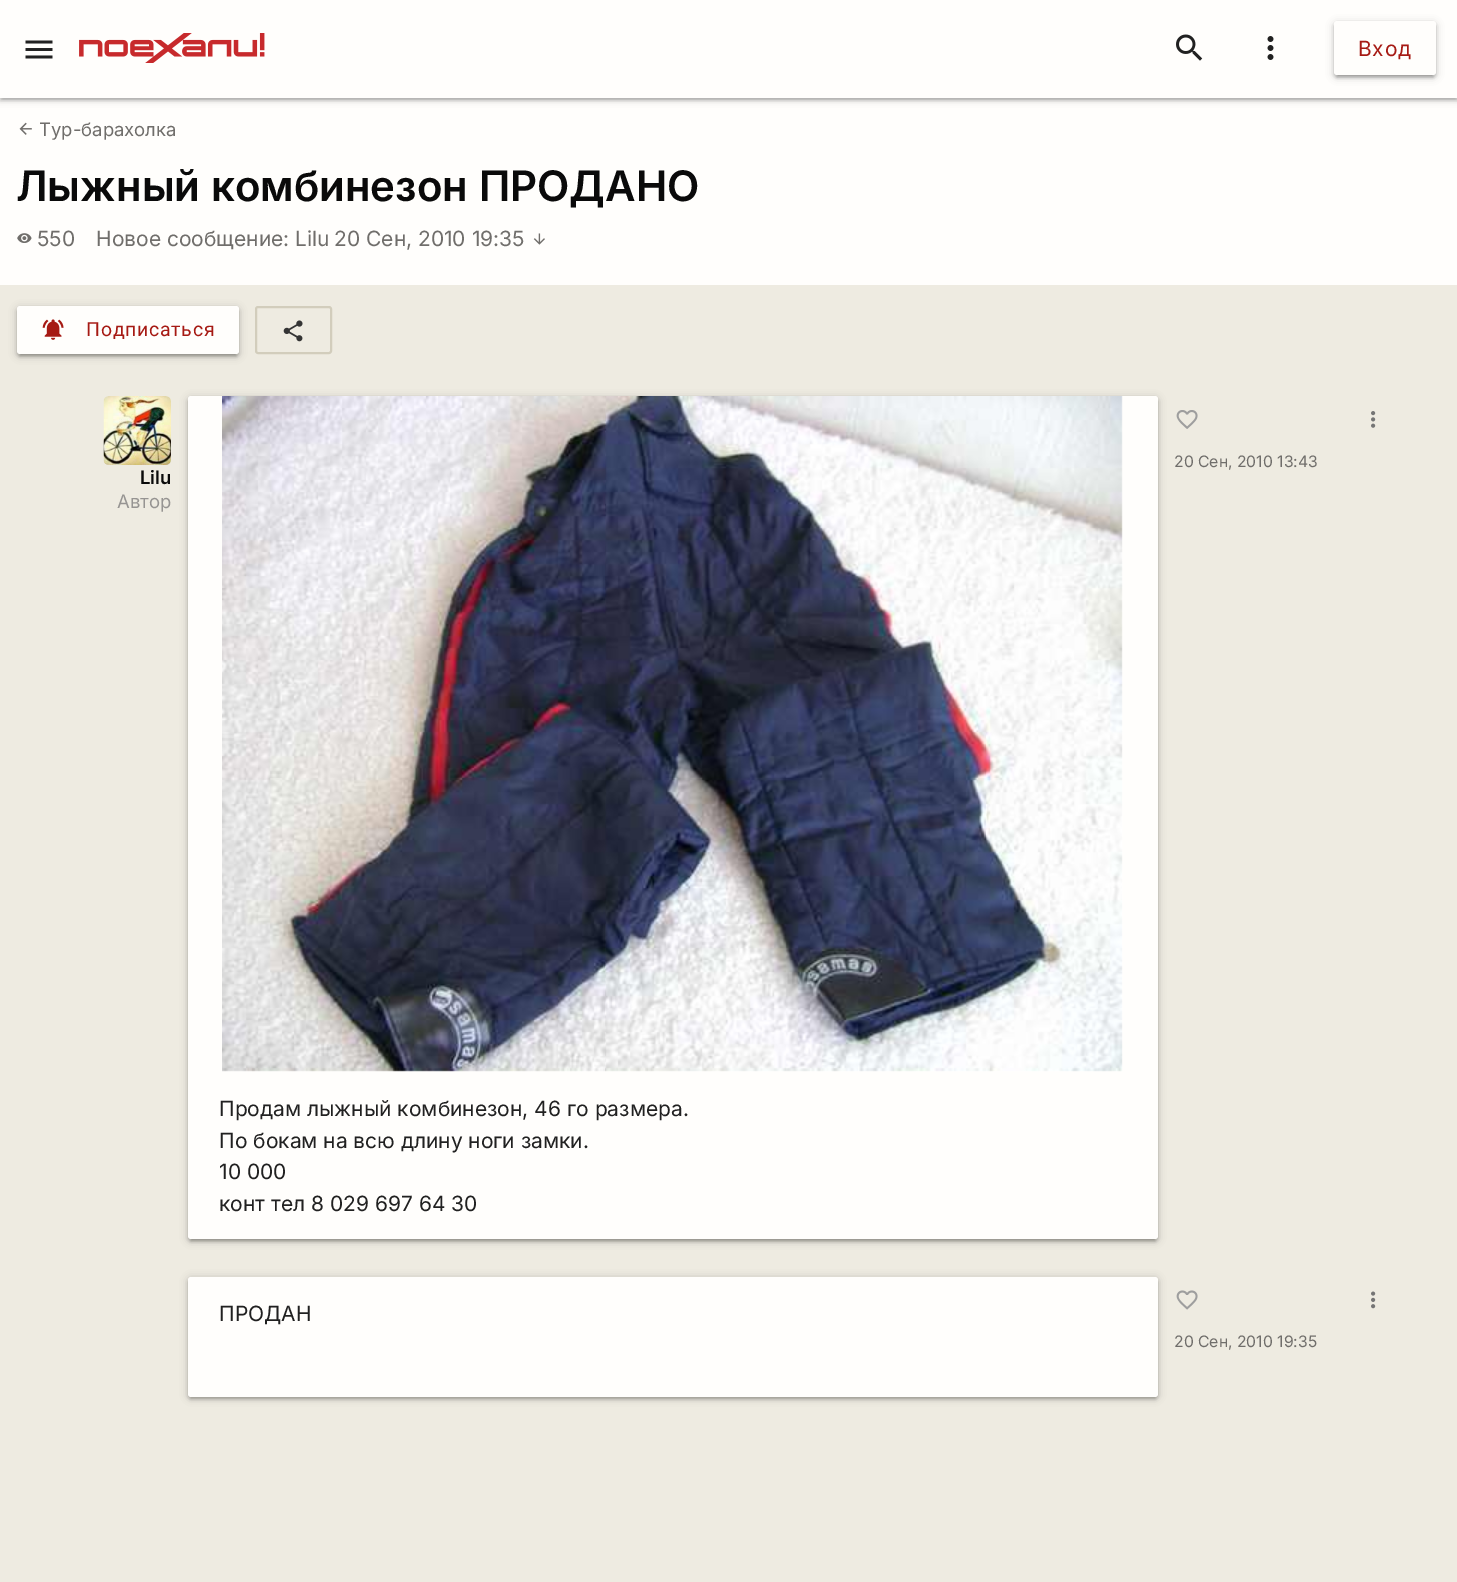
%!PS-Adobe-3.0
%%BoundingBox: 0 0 1457 1582
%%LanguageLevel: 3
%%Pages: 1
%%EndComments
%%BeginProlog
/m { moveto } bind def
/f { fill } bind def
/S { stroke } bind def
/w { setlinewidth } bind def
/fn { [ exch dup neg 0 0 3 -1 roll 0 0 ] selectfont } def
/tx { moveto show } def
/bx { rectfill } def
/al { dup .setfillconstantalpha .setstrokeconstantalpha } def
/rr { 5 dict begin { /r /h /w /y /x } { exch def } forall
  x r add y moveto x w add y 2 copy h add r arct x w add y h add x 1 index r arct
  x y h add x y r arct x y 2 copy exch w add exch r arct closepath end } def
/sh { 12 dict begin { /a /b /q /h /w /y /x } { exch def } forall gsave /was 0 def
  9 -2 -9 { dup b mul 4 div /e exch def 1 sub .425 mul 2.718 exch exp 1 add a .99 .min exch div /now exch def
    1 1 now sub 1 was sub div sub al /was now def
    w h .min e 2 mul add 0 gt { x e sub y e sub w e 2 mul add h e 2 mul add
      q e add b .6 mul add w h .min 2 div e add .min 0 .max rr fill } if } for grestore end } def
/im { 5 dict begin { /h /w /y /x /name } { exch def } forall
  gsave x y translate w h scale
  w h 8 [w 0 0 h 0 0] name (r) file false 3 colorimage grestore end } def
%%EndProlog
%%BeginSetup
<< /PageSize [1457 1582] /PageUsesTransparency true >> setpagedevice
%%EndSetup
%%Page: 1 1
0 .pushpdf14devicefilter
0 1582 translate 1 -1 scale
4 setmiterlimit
0.933 0.922 0.882 setrgbcolor
0 0 1457 1582 bx
1 0.996 0.988 setrgbcolor
0 98 1457 187 bx
0 setgray
0 2 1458 97 0 4 0.2 sh
3 8 1452 91 0 1 0.12 sh
0 3 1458 98 0 1.5 0.14 sh
1 0.996 0.988 setrgbcolor
0 0 1457 98 bx
(image0.raw) 25 40 28 19 im
(image1.raw) 79 33 186 30 im
(image2.raw) 1176 34 27 27 im
(image3.raw) 1267 36 7 24 im
0 setgray
1334 23 102 54 3 4 0.2 sh
1337 29 96 48 0 1 0.12 sh
1334 24 102 54 3 1.5 0.14 sh
1 0.996 0.988 setrgbcolor
1334 21 102 54 3 rr f
/Inter-Regular 21 fn
0.651 0.102 0.078 setrgbcolor
1358 56 m 0.75 0 (Вход) ashow
(image4.raw) 19 122 13 13 im
/Inter-Regular 18.5 fn
0.439 0.431 0.42 setrgbcolor
(Тур-барахолка) 39 136 tx
/Inter-SemiBold 42 fn
0.039 setgray
(Лыжный комбинезон ПРОДАНО) 16 201 tx
(image5.raw) 17 233 15 10 im
/Inter-Regular 21 fn
0.439 0.431 0.42 setrgbcolor
(550) 37 246 tx
(Новое сообщение:) 96 246 tx
(Lilu) 295 246 tx
(20 Сен, 2010 19:35) 334 246 tx
(image6.raw) 533 233 12 12 im
0 setgray
17 308 222 48 3 4 0.2 sh
20 314 216 42 0 1 0.12 sh
17 309 222 48 3 1.5 0.14 sh
1 0.996 0.988 setrgbcolor
17 306 222 48 3 rr f
(image7.raw) 42 319 22 21 im
/Roboto-Regular 19.5 fn
0.651 0.102 0.078 setrgbcolor
86 336 m 0.75 0 (Подписаться) ashow
0.824 0.804 0.737 setrgbcolor
2 w
256 307 75 46 2 rr S
(image8.raw) 283 320 20 22 im
(image9.raw) 1371 411 5 17 im
(image10.raw) 1176 410 22 19 im
/Inter-Regular 15.75 fn
0.439 0.431 0.42 setrgbcolor
(20 Сен, 2010 13:43) 1174 467 tx
(image11.raw) 103 396 68 69 im
/Inter-SemiBold 18.5 fn
0.039 setgray
(Lilu) 140 484 tx
/Inter-Regular 18.5 fn
0.588 0.58 0.573 setrgbcolor
(Автор) 117 508 tx
0 setgray
188 398 970 843 3 4 0.2 sh
191 404 964 837 0 1 0.12 sh
188 399 970 843 3 1.5 0.14 sh
1 0.996 0.988 setrgbcolor
188 396 970 843 3 rr f
(image12.raw) 222 396 901 676 im
/Inter-Regular 21 fn
0.129 setgray
(Продам лыжный комбинезон, 46 го размера.) 219 1116 tx
(По бокам на всю длину ноги замки.) 219 1148 tx
(10 000) 219 1179 tx
(конт тел 8 029 697 64 30) 219 1211 tx
0 setgray
188 1278 970 120 3 4 0.2 sh
191 1284 964 114 0 1 0.12 sh
188 1280 970 120 3 1.5 0.14 sh
1 0.996 0.988 setrgbcolor
188 1277 970 120 3 rr f
0.129 setgray
(ПРОДАН) 219 1321 tx
(image13.raw) 1371 1291 5 18 im
(image14.raw) 1176 1290 22 20 im
/Inter-Regular 15.75 fn
0.439 0.431 0.42 setrgbcolor
(20 Сен, 2010 19:35) 1174 1347 tx
.poppdf14devicefilter showpage
%%EOF
